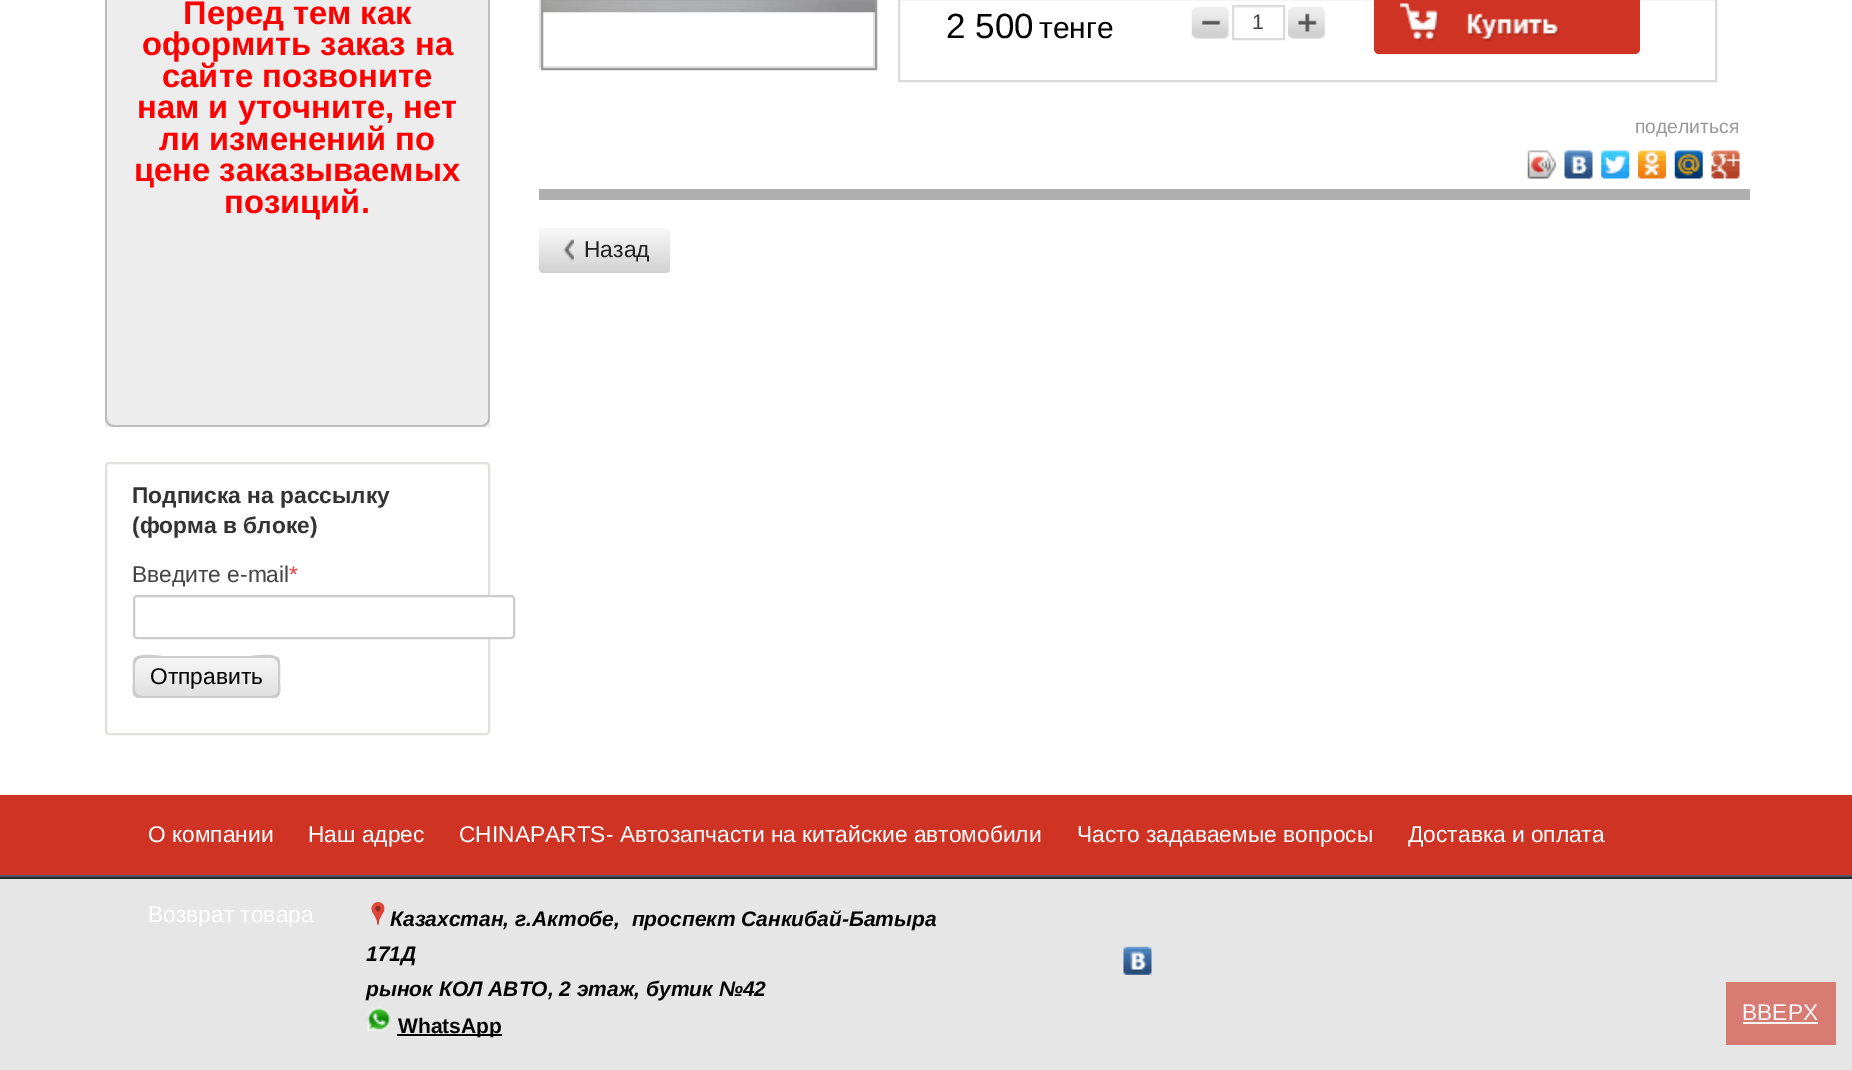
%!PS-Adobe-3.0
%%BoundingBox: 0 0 1852 1070
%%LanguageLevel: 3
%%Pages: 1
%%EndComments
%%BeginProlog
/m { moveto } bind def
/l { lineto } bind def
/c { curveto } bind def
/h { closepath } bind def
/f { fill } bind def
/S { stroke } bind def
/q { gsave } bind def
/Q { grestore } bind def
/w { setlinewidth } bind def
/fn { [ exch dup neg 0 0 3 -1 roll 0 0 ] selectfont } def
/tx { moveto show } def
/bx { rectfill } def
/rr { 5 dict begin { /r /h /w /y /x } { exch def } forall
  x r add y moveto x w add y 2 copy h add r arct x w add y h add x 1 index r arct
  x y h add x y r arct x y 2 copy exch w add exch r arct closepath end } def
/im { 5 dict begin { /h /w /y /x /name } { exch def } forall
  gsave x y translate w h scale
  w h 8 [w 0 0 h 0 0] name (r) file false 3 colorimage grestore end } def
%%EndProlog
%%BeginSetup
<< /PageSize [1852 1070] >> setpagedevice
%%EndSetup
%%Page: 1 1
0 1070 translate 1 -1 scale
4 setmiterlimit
1 setgray
0 0 1852 1070 bx
0.929 setgray
105 0 385 427 bx
0.737 setgray
105 -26 m 490 -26 l 490 418 l 490 423 486 427 481 427 c 114 427 l 109 427 105 423 105 418 c h 107 -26 m 488 -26 l 488 418 l 488 422 485 425 481 425 c 114 425 l 110 425 107 422 107 418 c h eofill
/LiberationSans-Bold 32.75 fn
1 0 0 setrgbcolor
(Перед тем как) 183 24 tx
(оформить заказ на) 142 55 tx
(сайте позвоните) 162 87 tx
(нам и уточните, нет) 137 118 tx
(ли изменений по) 159 150 tx
(цене заказываемых) 134 181 tx
(позиций.) 224 213 tx
0.886 0.878 0.863 setrgbcolor
2 w
106 463 383 271 3 rr S
/LiberationSans-Bold 22.75 fn
0.2 setgray
(Подписка на рассылку) 132 503 tx
(\(форма в блоке\)) 132 533 tx
/LiberationSans-Regular 22.75 fn
0.275 setgray
(Введите e-mail) 132 582 tx
0.922 0.235 0.235 setrgbcolor
(*) 289 582 tx
1 setgray
134 596 380 42 3 rr q f Q
0.8 setgray
S
q 133 656 147 42 7 rr clip newpath
<< /ShadingType 2 /ColorSpace /DeviceRGB /Coords [207 656 207 698] /Extend [true true] /Function << /FunctionType 2 /Domain [0 1] /C0 [0.973 0.973 0.973] /C1 [0.875 0.875 0.875] /N 1 >> >> shfill Q
137 657 m 135 658 133 660 133 663 c 133 691 l 133 695 136 698 140 698 c 273 698 l 275 698 277 697 279 695 c 275 696 l 142 696 l 138 696 135 693 135 690 c 135 662 l 135 660 136 658 137 657 c h f
138 658 m 271 658 l 275 658 278 661 278 665 c 278 693 l 278 694 278 696 277 697 c 282 694 280 686 280 682 c 280 652 284 656 251 656 c 162 656 l 158 656 139 652 134 659 c h f
134 695 m 136 697 138 698 140 698 c 273 698 l 277 698 280 695 280 691 c 280 663 l 280 660 278 658 276 657 c 277 658 278 660 278 662 c 278 690 l 278 693 275 696 271 696 c 138 696 l h f
142 658 m 275 658 l 276 658 278 658 279 659 c 274 652 255 656 251 656 c 162 656 l 129 656 133 652 133 682 c 133 686 131 694 136 697 c 135 696 135 694 135 693 c 135 665 l 135 661 138 658 142 658 c h f
0.016 setgray
(Отправить) 150 684 tx
0.878 setgray
540 -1 334 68 rectstroke
(image0.raw) 543 0 332 13 im
0.604 setgray
542 -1 334 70 rectstroke
0.859 setgray
899 -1 817 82 rectstroke
/LiberationSans-Regular 35 fn
0.016 setgray
(2 500) 946 38 tx
/LiberationSans-Regular 30 fn
(тенге) 1039 38 tx
(image1.raw) 1191 7 38 32 im
0.859 setgray
1233 6 51 33 rectstroke
/LiberationSans-Regular 21 fn
0.275 setgray
(1) 1252 29 tx
(image2.raw) 1288 7 37 32 im
0.808 0.2 0.141 setrgbcolor
1374 -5 266 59 5 rr f
(image3.raw) 1400 3 160 38 im
/LiberationSans-Regular 19.25 fn
0.6 setgray
(поделиться) 1635 133 tx
(image4.raw) 1527 150 29 29 im
(image5.raw) 1527 150 29 29 im
(image6.raw) 1564 150 29 29 im
(image7.raw) 1601 150 29 29 im
(image8.raw) 1638 150 28 29 im
(image9.raw) 1674 150 29 29 im
(image10.raw) 1711 150 29 29 im
0.686 setgray
539 189 1211 11 bx
q 539 228 131 45 5 rr clip newpath
<< /ShadingType 2 /ColorSpace /DeviceRGB /Coords [605 228 605 273] /Extend [true true] /Function << /FunctionType 2 /Domain [0 1] /C0 [0.976 0.976 0.976] /C1 [0.82 0.82 0.82] /N 1 >> >> shfill Q
(image11.raw) 563 239 11 22 im
/LiberationSans-Regular 22.75 fn
0.133 setgray
(Назад) 584 257 tx
0.902 setgray
0 879 1852 191 bx
0.808 0.2 0.141 setrgbcolor
0 795 1852 80 bx
0.318 0.337 0.361 setrgbcolor
0 875 1852 2 bx
1 setgray
(О компании) 148 842 tx
(Наш адрес) 308 842 tx
(CHINAPARTS- Автозапчасти на китайские автомобили) 459 842 tx
(Часто задаваемые вопросы) 1077 842 tx
(Доставка и оплата) 1408 842 tx
(Возврат товара) 148 922 tx
0.145 0.161 0.18 setrgbcolor
0 877 1852 2 bx
(image12.raw) 371 902 14 23 im
/LiberationSans-BoldItalic 21 fn
0.016 setgray
(Казахстан, г.Актобе,  проспект Санкибай-Батыра) 390 926 tx
(171Д) 366 961 tx
(рынок КОЛ АВТО, 2 этаж, бутик №42) 366 996 tx
(image13.raw) 367 1006 25 26 im
0 setgray
397 1034 105 2 bx
/LiberationSans-Bold 21 fn
0.016 setgray
(WhatsApp) 398 1033 tx
(image14.raw) 1123 946 29 29 im
0.847 0.482 0.447 setrgbcolor
1726 982 110 63 bx
/LiberationSans-Regular 22.75 fn
0.961 setgray
(ВВЕРХ) 1742 1020 tx
1743 1022 75 2 bx
showpage
%%EOF
